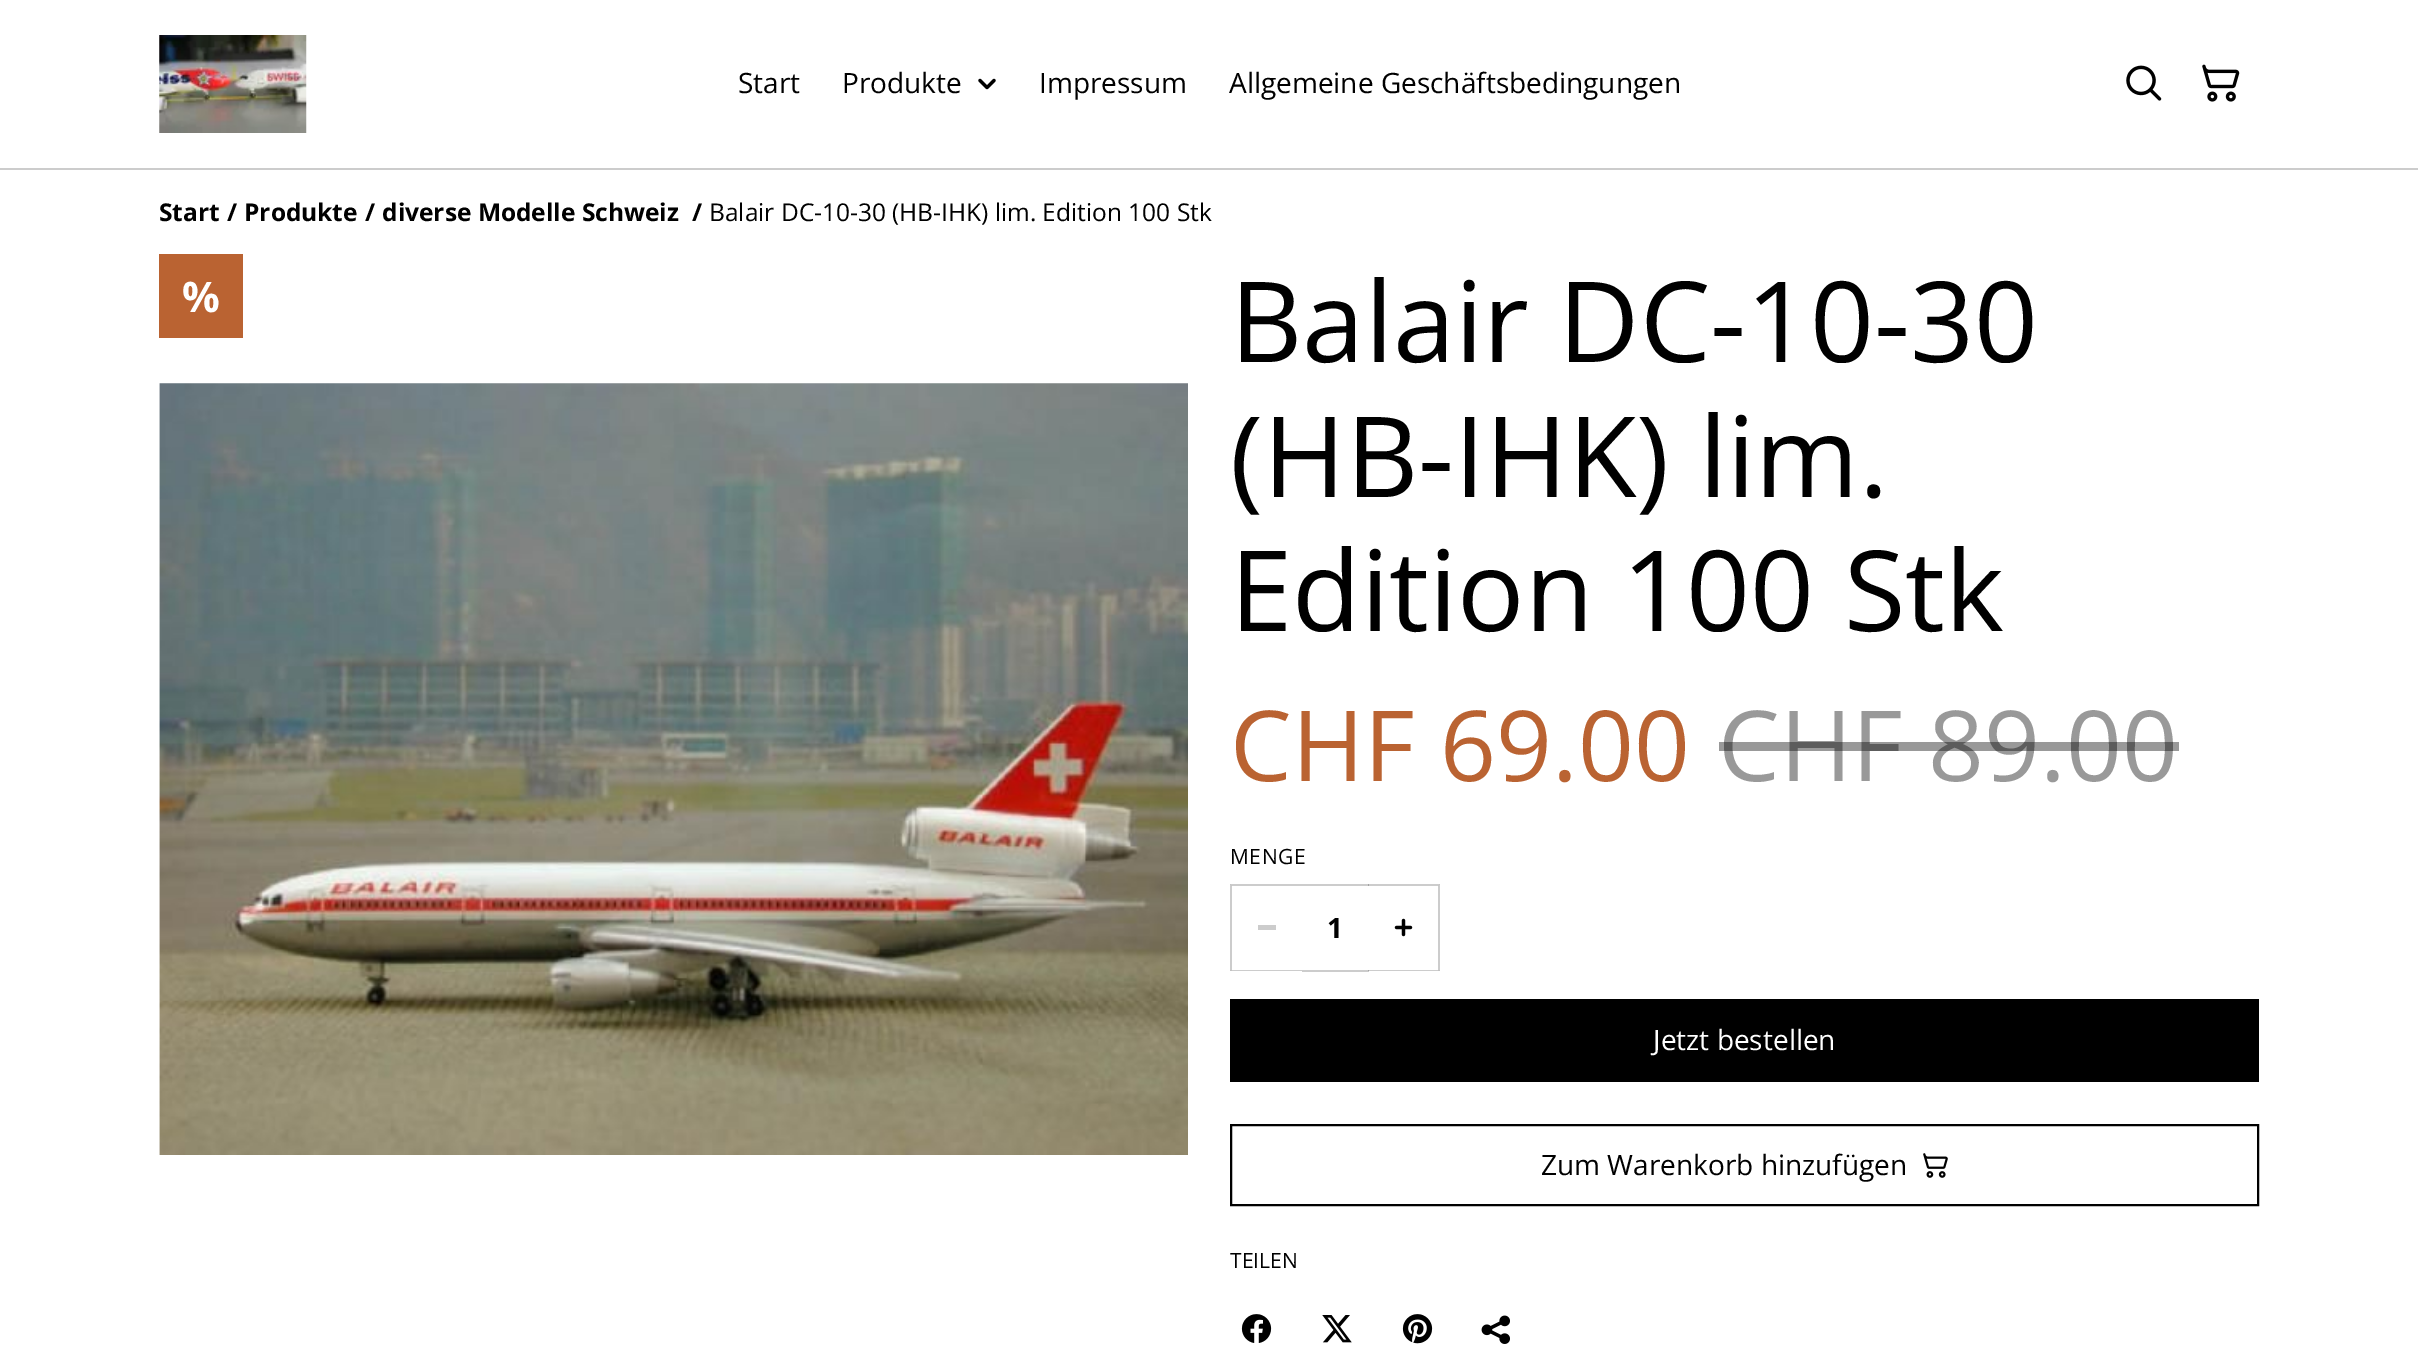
%!PS-Adobe-3.0
%%BoundingBox: 0 0 2418 1346
%%LanguageLevel: 3
%%Pages: 1
%%EndComments
%%BeginProlog
/m { moveto } bind def
/l { lineto } bind def
/h { closepath } bind def
/f { fill } bind def
/w { setlinewidth } bind def
/fn { [ exch dup neg 0 0 3 -1 roll 0 0 ] selectfont } def
/tx { moveto show } def
/bx { rectfill } def
/al { dup .setfillconstantalpha .setstrokeconstantalpha } def
/im { 5 dict begin { /h /w /y /x /name } { exch def } forall
  gsave x y translate w h scale
  w h 8 [w 0 0 h 0 0] name (r) file false 3 colorimage grestore end } def
%%EndProlog
%%BeginSetup
<< /PageSize [2418 1346] /PageUsesTransparency true >> setpagedevice
%%EndSetup
%%Page: 1 1
0 .pushpdf14devicefilter
0 1346 translate 1 -1 scale
4 setmiterlimit
1 setgray
0 0 2418 1346 bx
0.8 setgray
0 168 2418 2 bx
(image0.raw) 159 35 148 98 im
/OpenSans-Regular 28 fn
0 setgray
(Start) 738 93 tx
(Produkte) 842 93 tx
(image1.raw) 978 78 18 12 im
(Impressum) 1039 93 tx
(Allgemeine Geschäftsbedingungen) 1229 93 tx
(image2.raw) 2126 65 36 36 im
(image3.raw) 2202 64 38 38 im
/OpenSans-Bold 24.5 fn
(Start) 159 221 tx
(/) 227 221 tx
(Produkte) 244 221 tx
(/) 365 221 tx
(diverse Modelle Schweiz) 382 221 tx
(/) 692 221 tx
/OpenSans-Regular 24.5 fn
(Balair DC-10-30 \(HB-IHK\) lim. Edition 100 Stk) 709 221 tx
0.729 0.388 0.196 setrgbcolor
159 254 84 84 bx
/OpenSans-Bold 42 fn
1 setgray
(%) 182 312 tx
(image4.raw) 159 383 1029 772 im
/OpenSans-Regular 112 fn
0 setgray
(Balair DC-10-30) 1230 362 tx
(\(HB-IHK\) lim.) 1230 497 tx
(Edition 100 Stk) 1230 631 tx
/OpenSans-Regular 98 fn
0.729 0.388 0.196 setrgbcolor
(CHF 69.00) 1230 781 tx
0.6 setgray
(CHF 89.00) 1718 781 tx
0.4 al
0 setgray
1719 742 460 9 bx
/OpenSans-Regular 21 fn
1 al
1230 864 m 0.5 0 (MENGE) ashow
0.8 setgray
1230 884 m 1302 884 l 1302 886 l 1232 886 l h f
1302 971 m 1230 971 l 1232 970 l 1302 970 l h f
0.2 al
0 setgray
1230 971 m 1230 884 l 1232 886 l 1232 970 l h f
1 al
0.8 setgray
1258 925 18 5 bx
1302 884 67 2 bx
1302 970 67 2 bx
/OpenSans-Bold 28 fn
0 setgray
(1) 1327 938 tx
0.2 al
1368 884 m 1440 884 l 1438 886 l 1368 886 l h f
1440 884 m 1440 971 l 1438 970 l 1438 886 l h f
1440 971 m 1368 971 l 1368 970 l 1438 970 l h f
1 al
(image5.raw) 1394 918 19 19 im
1230 999 1029 83 bx
/OpenSans-Regular 28 fn
1 setgray
(Jetzt bestellen) 1653 1050 tx
0 setgray
2 w
1231 1125 1027 80 rectstroke
(Zum Warenkorb hinzufügen) 1541 1175 tx
(image6.raw) 1923 1153 25 25 im
/OpenSans-Regular 21 fn
(TEILEN) 1230 1268 tx
(image7.raw) 1241 1314 31 29 im
(image8.raw) 1322 1315 30 28 im
(image9.raw) 1402 1314 31 30 im
(image10.raw) 1481 1315 29 29 im
.poppdf14devicefilter showpage
%%EOF
